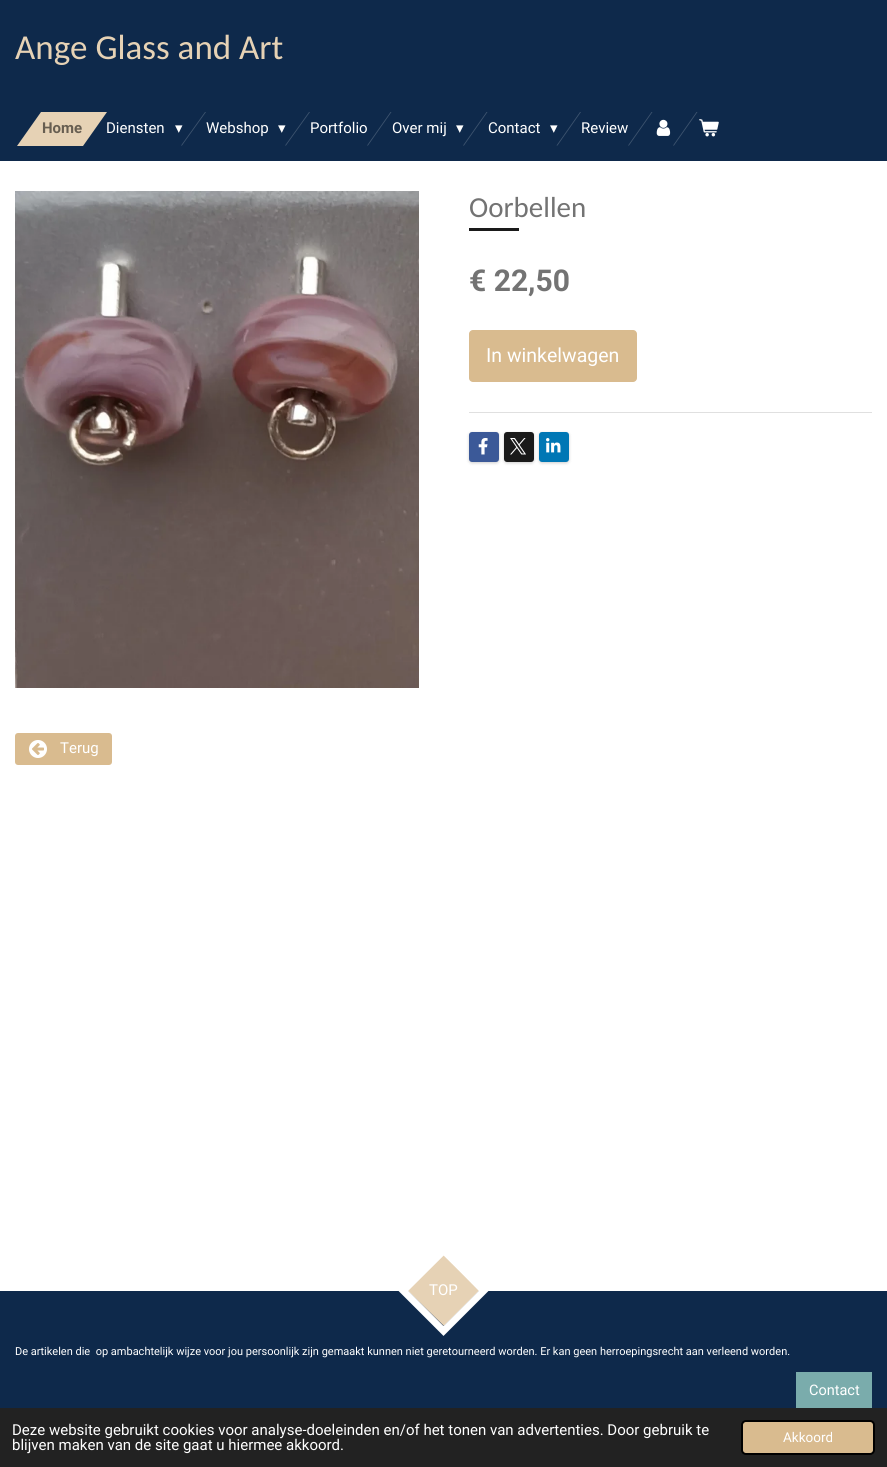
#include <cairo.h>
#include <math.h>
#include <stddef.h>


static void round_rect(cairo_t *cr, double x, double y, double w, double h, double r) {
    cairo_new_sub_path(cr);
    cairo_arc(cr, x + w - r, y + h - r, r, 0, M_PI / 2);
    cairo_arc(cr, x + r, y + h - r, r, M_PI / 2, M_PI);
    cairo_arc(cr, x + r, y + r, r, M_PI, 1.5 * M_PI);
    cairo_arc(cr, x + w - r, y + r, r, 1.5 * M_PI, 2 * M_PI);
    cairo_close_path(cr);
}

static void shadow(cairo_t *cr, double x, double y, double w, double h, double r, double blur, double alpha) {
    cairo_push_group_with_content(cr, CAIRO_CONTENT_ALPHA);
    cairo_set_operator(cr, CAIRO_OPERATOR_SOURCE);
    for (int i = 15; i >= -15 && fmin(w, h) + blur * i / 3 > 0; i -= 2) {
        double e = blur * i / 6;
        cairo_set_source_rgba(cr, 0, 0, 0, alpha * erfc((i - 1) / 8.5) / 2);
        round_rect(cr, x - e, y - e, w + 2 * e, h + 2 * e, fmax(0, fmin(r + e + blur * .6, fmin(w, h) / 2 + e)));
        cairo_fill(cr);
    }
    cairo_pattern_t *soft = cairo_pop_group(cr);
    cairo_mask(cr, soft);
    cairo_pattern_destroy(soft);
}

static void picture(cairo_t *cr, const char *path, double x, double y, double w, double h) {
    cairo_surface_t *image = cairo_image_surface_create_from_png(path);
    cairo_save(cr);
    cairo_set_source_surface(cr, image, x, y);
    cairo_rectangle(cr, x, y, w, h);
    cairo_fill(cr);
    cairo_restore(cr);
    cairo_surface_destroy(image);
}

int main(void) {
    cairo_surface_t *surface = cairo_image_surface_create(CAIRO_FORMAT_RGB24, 887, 1467);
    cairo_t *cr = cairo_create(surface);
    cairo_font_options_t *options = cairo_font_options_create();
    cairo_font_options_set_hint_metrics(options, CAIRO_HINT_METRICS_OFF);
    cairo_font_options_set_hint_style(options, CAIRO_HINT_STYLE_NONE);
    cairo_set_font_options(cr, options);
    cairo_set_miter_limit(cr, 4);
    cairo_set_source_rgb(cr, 1, 1, 1);
    cairo_paint(cr);
    cairo_set_source_rgb(cr, 0.055, 0.161, 0.294);
    cairo_rectangle(cr, 0, 0, 887, 161);
    cairo_fill(cr);
    cairo_select_font_face(cr, "Carlito", CAIRO_FONT_SLANT_NORMAL, CAIRO_FONT_WEIGHT_NORMAL);
    cairo_set_font_size(cr, 35);
    cairo_set_source_rgb(cr, 0.902, 0.824, 0.71);
    cairo_move_to(cr, 15, 59);
    cairo_show_text(cr, "Ange Glass and Art");
    cairo_new_path(cr);
    cairo_move_to(cr, 41, 112);
    cairo_line_to(cr, 107, 112);
    cairo_line_to(cr, 83, 146);
    cairo_line_to(cr, 17, 146);
    cairo_close_path(cr);
    cairo_fill(cr);
    cairo_select_font_face(cr, "Roboto", CAIRO_FONT_SLANT_NORMAL, CAIRO_FONT_WEIGHT_BOLD);
    cairo_set_font_size(cr, 15);
    cairo_set_source_rgb(cr, 0.404, 0.369, 0.318);
    cairo_move_to(cr, 42, 133);
    cairo_show_text(cr, "Home");
    cairo_select_font_face(cr, "Roboto", CAIRO_FONT_SLANT_NORMAL, CAIRO_FONT_WEIGHT_NORMAL);
    cairo_set_source_rgb(cr, 1, 1, 1);
    cairo_move_to(cr, 106, 133);
    cairo_show_text(cr, "Diensten");
    cairo_set_source_rgb(cr, 0.243, 0.329, 0.435);
    cairo_new_path(cr);
    cairo_move_to(cr, 205, 112);
    cairo_line_to(cr, 206, 112);
    cairo_line_to(cr, 182, 145.5);
    cairo_line_to(cr, 181, 145.5);
    cairo_close_path(cr);
    cairo_fill(cr);
    cairo_select_font_face(cr, "DejaVu Sans", CAIRO_FONT_SLANT_NORMAL, CAIRO_FONT_WEIGHT_NORMAL);
    cairo_set_source_rgb(cr, 1, 1, 1);
    cairo_move_to(cr, 175, 133);
    cairo_show_text(cr, "▾");
    cairo_select_font_face(cr, "Roboto", CAIRO_FONT_SLANT_NORMAL, CAIRO_FONT_WEIGHT_NORMAL);
    cairo_move_to(cr, 206, 133);
    cairo_show_text(cr, "Webshop");
    cairo_set_source_rgb(cr, 0.243, 0.329, 0.435);
    cairo_new_path(cr);
    cairo_move_to(cr, 309, 112);
    cairo_line_to(cr, 310, 112);
    cairo_line_to(cr, 286, 145.5);
    cairo_line_to(cr, 285, 145.5);
    cairo_close_path(cr);
    cairo_fill(cr);
    cairo_select_font_face(cr, "DejaVu Sans", CAIRO_FONT_SLANT_NORMAL, CAIRO_FONT_WEIGHT_NORMAL);
    cairo_set_source_rgb(cr, 1, 1, 1);
    cairo_move_to(cr, 278, 133);
    cairo_show_text(cr, "▾");
    cairo_select_font_face(cr, "Roboto", CAIRO_FONT_SLANT_NORMAL, CAIRO_FONT_WEIGHT_NORMAL);
    cairo_move_to(cr, 310, 133);
    cairo_show_text(cr, "Portfolio");
    cairo_set_source_rgb(cr, 0.243, 0.329, 0.435);
    cairo_new_path(cr);
    cairo_move_to(cr, 390.5, 112);
    cairo_line_to(cr, 391.5, 112);
    cairo_line_to(cr, 368, 145.5);
    cairo_line_to(cr, 367, 145.5);
    cairo_close_path(cr);
    cairo_fill(cr);
    cairo_set_source_rgb(cr, 1, 1, 1);
    cairo_move_to(cr, 392, 133);
    cairo_show_text(cr, "Over mij");
    cairo_set_source_rgb(cr, 0.243, 0.329, 0.435);
    cairo_new_path(cr);
    cairo_move_to(cr, 486.5, 112);
    cairo_line_to(cr, 487.5, 112);
    cairo_line_to(cr, 464, 145.5);
    cairo_line_to(cr, 463, 145.5);
    cairo_close_path(cr);
    cairo_fill(cr);
    cairo_select_font_face(cr, "DejaVu Sans", CAIRO_FONT_SLANT_NORMAL, CAIRO_FONT_WEIGHT_NORMAL);
    cairo_set_source_rgb(cr, 1, 1, 1);
    cairo_move_to(cr, 456, 133);
    cairo_show_text(cr, "▾");
    cairo_select_font_face(cr, "Roboto", CAIRO_FONT_SLANT_NORMAL, CAIRO_FONT_WEIGHT_NORMAL);
    cairo_move_to(cr, 488, 133);
    cairo_show_text(cr, "Contact");
    cairo_set_source_rgb(cr, 0.243, 0.329, 0.435);
    cairo_new_path(cr);
    cairo_move_to(cr, 580, 112);
    cairo_line_to(cr, 581, 112);
    cairo_line_to(cr, 557.5, 145.5);
    cairo_line_to(cr, 556.5, 145.5);
    cairo_close_path(cr);
    cairo_fill(cr);
    cairo_select_font_face(cr, "DejaVu Sans", CAIRO_FONT_SLANT_NORMAL, CAIRO_FONT_WEIGHT_NORMAL);
    cairo_set_source_rgb(cr, 1, 1, 1);
    cairo_move_to(cr, 550, 133);
    cairo_show_text(cr, "▾");
    cairo_set_source_rgb(cr, 0.243, 0.329, 0.435);
    cairo_new_path(cr);
    cairo_move_to(cr, 651.5, 112);
    cairo_line_to(cr, 652.5, 112);
    cairo_line_to(cr, 629, 145.5);
    cairo_line_to(cr, 628, 145.5);
    cairo_close_path(cr);
    cairo_fill(cr);
    cairo_select_font_face(cr, "Roboto", CAIRO_FONT_SLANT_NORMAL, CAIRO_FONT_WEIGHT_NORMAL);
    cairo_set_source_rgb(cr, 1, 1, 1);
    cairo_move_to(cr, 581, 133);
    cairo_show_text(cr, "Review");
    picture(cr, "img1.png", 656, 119, 15, 17);
    cairo_set_source_rgb(cr, 0.243, 0.329, 0.435);
    cairo_new_path(cr);
    cairo_move_to(cr, 696.5, 112);
    cairo_line_to(cr, 697.5, 112);
    cairo_line_to(cr, 674, 145.5);
    cairo_line_to(cr, 673, 145.5);
    cairo_close_path(cr);
    cairo_fill(cr);
    picture(cr, "img2.png", 699, 119, 20, 18);
    picture(cr, "img3.png", 15, 191, 404, 497);
    cairo_select_font_face(cr, "Carlito", CAIRO_FONT_SLANT_NORMAL, CAIRO_FONT_WEIGHT_NORMAL);
    cairo_set_font_size(cr, 29);
    cairo_set_source_rgb(cr, 0.451, 0.451, 0.451);
    cairo_move_to(cr, 469, 217);
    cairo_show_text(cr, "Oorbellen");
    cairo_set_source_rgb(cr, 0.102, 0.102, 0.102);
    cairo_rectangle(cr, 469, 228, 50, 3);
    cairo_fill(cr);
    cairo_select_font_face(cr, "Roboto", CAIRO_FONT_SLANT_NORMAL, CAIRO_FONT_WEIGHT_BOLD);
    cairo_set_font_size(cr, 30);
    cairo_set_source_rgb(cr, 0.451, 0.451, 0.451);
    cairo_move_to(cr, 469, 291);
    cairo_show_text(cr, "€ 22,50");
    cairo_set_source_rgb(cr, 0.851, 0.733, 0.561);
    round_rect(cr, 469, 330, 168, 52, 4);
    cairo_fill(cr);
    cairo_select_font_face(cr, "Roboto", CAIRO_FONT_SLANT_NORMAL, CAIRO_FONT_WEIGHT_NORMAL);
    cairo_set_font_size(cr, 19.5);
    cairo_set_source_rgb(cr, 1, 1, 1);
    cairo_move_to(cr, 486, 362);
    cairo_show_text(cr, "In winkelwagen");
    cairo_set_source_rgb(cr, 0.878, 0.878, 0.878);
    cairo_rectangle(cr, 469, 412, 403, 1);
    cairo_fill(cr);
    cairo_set_source_rgb(cr, 0, 0, 0);
    shadow(cr, 469, 433, 30, 30, 3, 1.5, 0.2);
    cairo_set_source_rgb(cr, 0.231, 0.349, 0.596);
    round_rect(cr, 469, 432, 30, 30, 3);
    cairo_fill(cr);
    picture(cr, "img4.png", 478, 438, 10, 17);
    cairo_set_source_rgb(cr, 0, 0, 0);
    shadow(cr, 504, 433, 30, 30, 3, 1.5, 0.2);
    cairo_set_source_rgb(cr, 0.102, 0.102, 0.102);
    round_rect(cr, 504, 432, 30, 30, 3);
    cairo_fill(cr);
    picture(cr, "img5.png", 510, 438, 16, 17);
    cairo_set_source_rgb(cr, 0, 0, 0);
    shadow(cr, 539, 433, 30, 30, 3, 1.5, 0.2);
    cairo_set_source_rgb(cr, 0, 0.467, 0.71);
    round_rect(cr, 539, 432, 30, 30, 3);
    cairo_fill(cr);
    picture(cr, "img6.png", 546, 438, 15, 15);
    cairo_set_source_rgb(cr, 0.851, 0.733, 0.561);
    round_rect(cr, 15, 733, 97, 32, 3);
    cairo_fill(cr);
    picture(cr, "img7.png", 29, 740, 18, 18);
    cairo_set_font_size(cr, 15);
    cairo_set_source_rgb(cr, 1, 1, 1);
    cairo_move_to(cr, 60, 753);
    cairo_show_text(cr, "Terug");
    cairo_set_source_rgb(cr, 0.055, 0.161, 0.294);
    cairo_rectangle(cr, 0, 1291, 887, 117);
    cairo_fill(cr);
    cairo_set_source_rgb(cr, 0.902, 0.824, 0.71);
    cairo_new_path(cr);
    cairo_move_to(cr, 444, 1255);
    cairo_line_to(cr, 479, 1291);
    cairo_line_to(cr, 444, 1326);
    cairo_line_to(cr, 408, 1291);
    cairo_close_path(cr);
    cairo_fill(cr);
    cairo_new_path(cr);
    cairo_move_to(cr, 443.5, 1250.5);
    cairo_line_to(cr, 484, 1290.5);
    cairo_line_to(cr, 443.5, 1331);
    cairo_line_to(cr, 403, 1290.5);
    cairo_close_path(cr);
    cairo_set_source_rgb(cr, 1, 1, 1);
    cairo_set_line_width(cr, 7);
    cairo_stroke(cr);
    cairo_move_to(cr, 429, 1295);
    cairo_show_text(cr, "TOP");
    cairo_set_font_size(cr, 11);
    cairo_move_to(cr, 15, 1355);
    cairo_show_text(cr, "De artikelen die  op ambachtelijk wijze voor jou persoonlijk zijn gemaakt kunnen niet geretourneerd worden. Er kan geen herroepingsrecht aan verleend worden.");
    cairo_set_source_rgb(cr, 0.478, 0.675, 0.675);
    cairo_rectangle(cr, 796, 1372, 76, 36);
    cairo_fill(cr);
    cairo_set_font_size(cr, 14.5);
    cairo_set_source_rgb(cr, 1, 1, 1);
    cairo_move_to(cr, 809, 1395);
    cairo_show_text(cr, "Contact");
    cairo_set_source_rgb(cr, 0.133, 0.133, 0.133);
    cairo_rectangle(cr, 0, 1408, 887, 59);
    cairo_fill(cr);
    cairo_set_font_size(cr, 15);
    cairo_set_source_rgb(cr, 1, 1, 1);
    cairo_move_to(cr, 12, 1435);
    cairo_show_text(cr, "Deze website gebruikt cookies voor analyse-doeleinden en/of het tonen van advertenties. Door gebruik te");
    cairo_move_to(cr, 12, 1450);
    cairo_show_text(cr, "blijven maken van de site gaat u hiermee akkoord.");
    cairo_set_source_rgb(cr, 0.851, 0.733, 0.561);
    round_rect(cr, 742, 1421, 132, 33, 4);
    cairo_fill_preserve(cr);
    cairo_set_source_rgb(cr, 0, 0, 0);
    cairo_set_line_width(cr, 2);
    cairo_stroke(cr);
    cairo_set_font_size(cr, 13.5);
    cairo_set_source_rgb(cr, 1, 1, 1);
    cairo_move_to(cr, 783, 1442);
    cairo_show_text(cr, "Akkoord");
    cairo_surface_write_to_png(surface, "page.png");
    cairo_font_options_destroy(options);
    cairo_destroy(cr);
    cairo_surface_destroy(surface);
    return 0;
}
